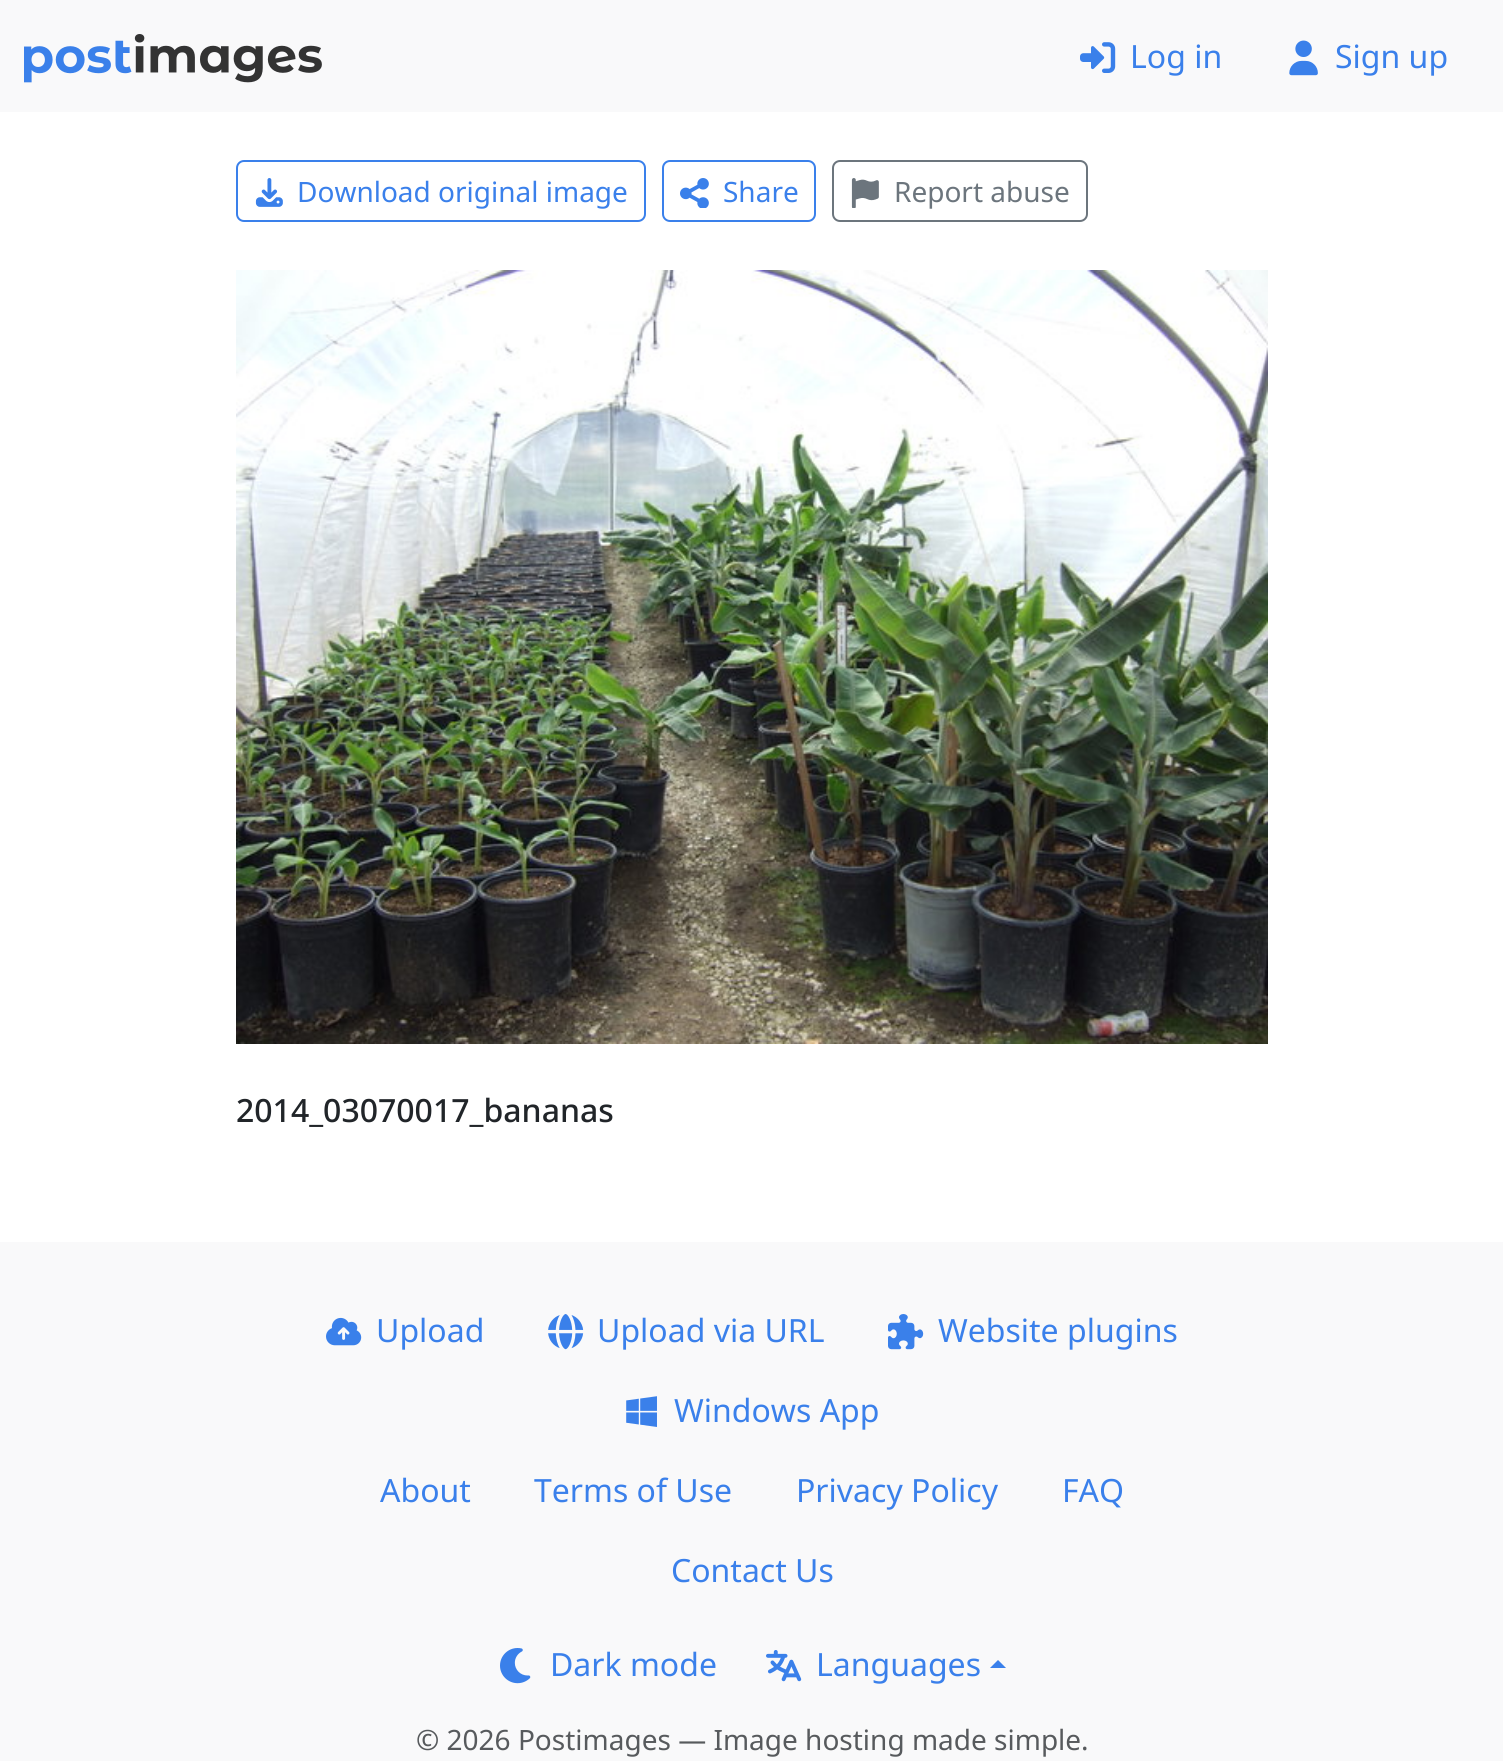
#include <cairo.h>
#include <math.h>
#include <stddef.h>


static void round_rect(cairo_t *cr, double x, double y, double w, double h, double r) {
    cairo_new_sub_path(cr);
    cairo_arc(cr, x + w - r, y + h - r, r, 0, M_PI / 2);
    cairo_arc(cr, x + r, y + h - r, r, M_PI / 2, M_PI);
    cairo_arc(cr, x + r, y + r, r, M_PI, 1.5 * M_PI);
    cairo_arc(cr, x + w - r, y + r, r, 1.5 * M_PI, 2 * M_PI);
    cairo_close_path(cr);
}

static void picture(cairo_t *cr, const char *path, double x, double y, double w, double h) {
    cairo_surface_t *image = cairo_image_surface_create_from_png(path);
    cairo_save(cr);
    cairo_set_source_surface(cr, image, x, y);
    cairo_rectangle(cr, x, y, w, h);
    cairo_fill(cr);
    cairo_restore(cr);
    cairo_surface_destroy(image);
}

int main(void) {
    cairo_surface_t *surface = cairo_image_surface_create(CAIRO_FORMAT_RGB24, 1503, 1761);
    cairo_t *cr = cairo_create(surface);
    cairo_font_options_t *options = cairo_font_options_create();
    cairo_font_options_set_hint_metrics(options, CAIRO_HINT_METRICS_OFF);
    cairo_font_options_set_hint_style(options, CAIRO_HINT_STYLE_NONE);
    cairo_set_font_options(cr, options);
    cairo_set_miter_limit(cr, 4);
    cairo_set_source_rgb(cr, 1, 1, 1);
    cairo_paint(cr);
    cairo_set_source_rgb(cr, 0.973, 0.976, 0.98);
    cairo_rectangle(cr, 0, 0, 1503, 112);
    cairo_fill(cr);
    picture(cr, "img1.png", 24, 34, 298, 49);
    picture(cr, "img2.png", 1080, 42, 36, 31);
    cairo_select_font_face(cr, "Noto Sans", CAIRO_FONT_SLANT_NORMAL, CAIRO_FONT_WEIGHT_NORMAL);
    cairo_set_font_size(cr, 32);
    cairo_set_source_rgb(cr, 0.227, 0.502, 0.918);
    cairo_move_to(cr, 1130, 68);
    cairo_show_text(cr, "Log in");
    picture(cr, "img3.png", 1289, 40, 29, 36);
    cairo_move_to(cr, 1335, 68);
    cairo_show_text(cr, "Sign up");
    round_rect(cr, 237, 161, 408, 60, 7);
    cairo_stroke(cr);
    picture(cr, "img4.png", 255, 178, 28, 29);
    cairo_set_font_size(cr, 28);
    cairo_move_to(cr, 297, 202);
    cairo_show_text(cr, "Download original image");
    round_rect(cr, 663, 161, 152, 60, 7);
    cairo_stroke(cr);
    picture(cr, "img5.png", 680, 178, 29, 30);
    cairo_move_to(cr, 723, 202);
    cairo_show_text(cr, "Share");
    round_rect(cr, 833, 161, 254, 60, 7);
    cairo_set_source_rgb(cr, 0.424, 0.459, 0.49);
    cairo_stroke(cr);
    picture(cr, "img6.png", 851, 178, 28, 30);
    cairo_move_to(cr, 894, 202);
    cairo_show_text(cr, "Report abuse");
    picture(cr, "img7.png", 236, 270, 1032, 774);
    cairo_select_font_face(cr, "Noto Sans Medium", CAIRO_FONT_SLANT_NORMAL, CAIRO_FONT_WEIGHT_NORMAL);
    cairo_set_font_size(cr, 32);
    cairo_set_source_rgb(cr, 0.129, 0.145, 0.161);
    cairo_move_to(cr, 236, 1122);
    cairo_show_text(cr, "2014_03070017_bananas");
    cairo_set_source_rgb(cr, 0.973, 0.976, 0.98);
    cairo_rectangle(cr, 0, 1242, 1503, 519);
    cairo_fill(cr);
    picture(cr, "img8.png", 326, 1317, 36, 29);
    cairo_select_font_face(cr, "Noto Sans", CAIRO_FONT_SLANT_NORMAL, CAIRO_FONT_WEIGHT_NORMAL);
    cairo_set_source_rgb(cr, 0.227, 0.502, 0.918);
    cairo_move_to(cr, 376, 1342);
    cairo_show_text(cr, "Upload");
    picture(cr, "img9.png", 548, 1314, 36, 36);
    cairo_move_to(cr, 597, 1342);
    cairo_show_text(cr, "Upload via URL");
    picture(cr, "img10.png", 888, 1314, 36, 36);
    cairo_move_to(cr, 938, 1342);
    cairo_show_text(cr, "Website plugins");
    picture(cr, "img11.png", 626, 1396, 31, 31);
    cairo_move_to(cr, 674, 1422);
    cairo_show_text(cr, "Windows App");
    cairo_move_to(cr, 380, 1502);
    cairo_show_text(cr, "About");
    cairo_move_to(cr, 534, 1502);
    cairo_show_text(cr, "Terms of Use");
    cairo_move_to(cr, 796, 1502);
    cairo_show_text(cr, "Privacy Policy");
    cairo_move_to(cr, 1062, 1502);
    cairo_show_text(cr, "FAQ");
    cairo_move_to(cr, 671, 1582);
    cairo_show_text(cr, "Contact Us");
    picture(cr, "img12.png", 500, 1648, 31, 36);
    cairo_move_to(cr, 550, 1676);
    cairo_show_text(cr, "Dark mode");
    picture(cr, "img13.png", 766, 1650, 36, 32);
    cairo_move_to(cr, 816, 1676);
    cairo_show_text(cr, "Languages");
    cairo_new_path(cr);
    cairo_move_to(cr, 1006, 1668);
    cairo_line_to(cr, 990, 1668);
    cairo_line_to(cr, 998, 1660);
    cairo_close_path(cr);
    cairo_fill(cr);
    cairo_set_font_size(cr, 28);
    cairo_set_source_rgb(cr, 0.341, 0.353, 0.365);
    cairo_move_to(cr, 416, 1750);
    cairo_show_text(cr, "© 2026 Postimages — Image hosting made simple.");
    cairo_surface_write_to_png(surface, "page.png");
    cairo_font_options_destroy(options);
    cairo_destroy(cr);
    cairo_surface_destroy(surface);
    return 0;
}
